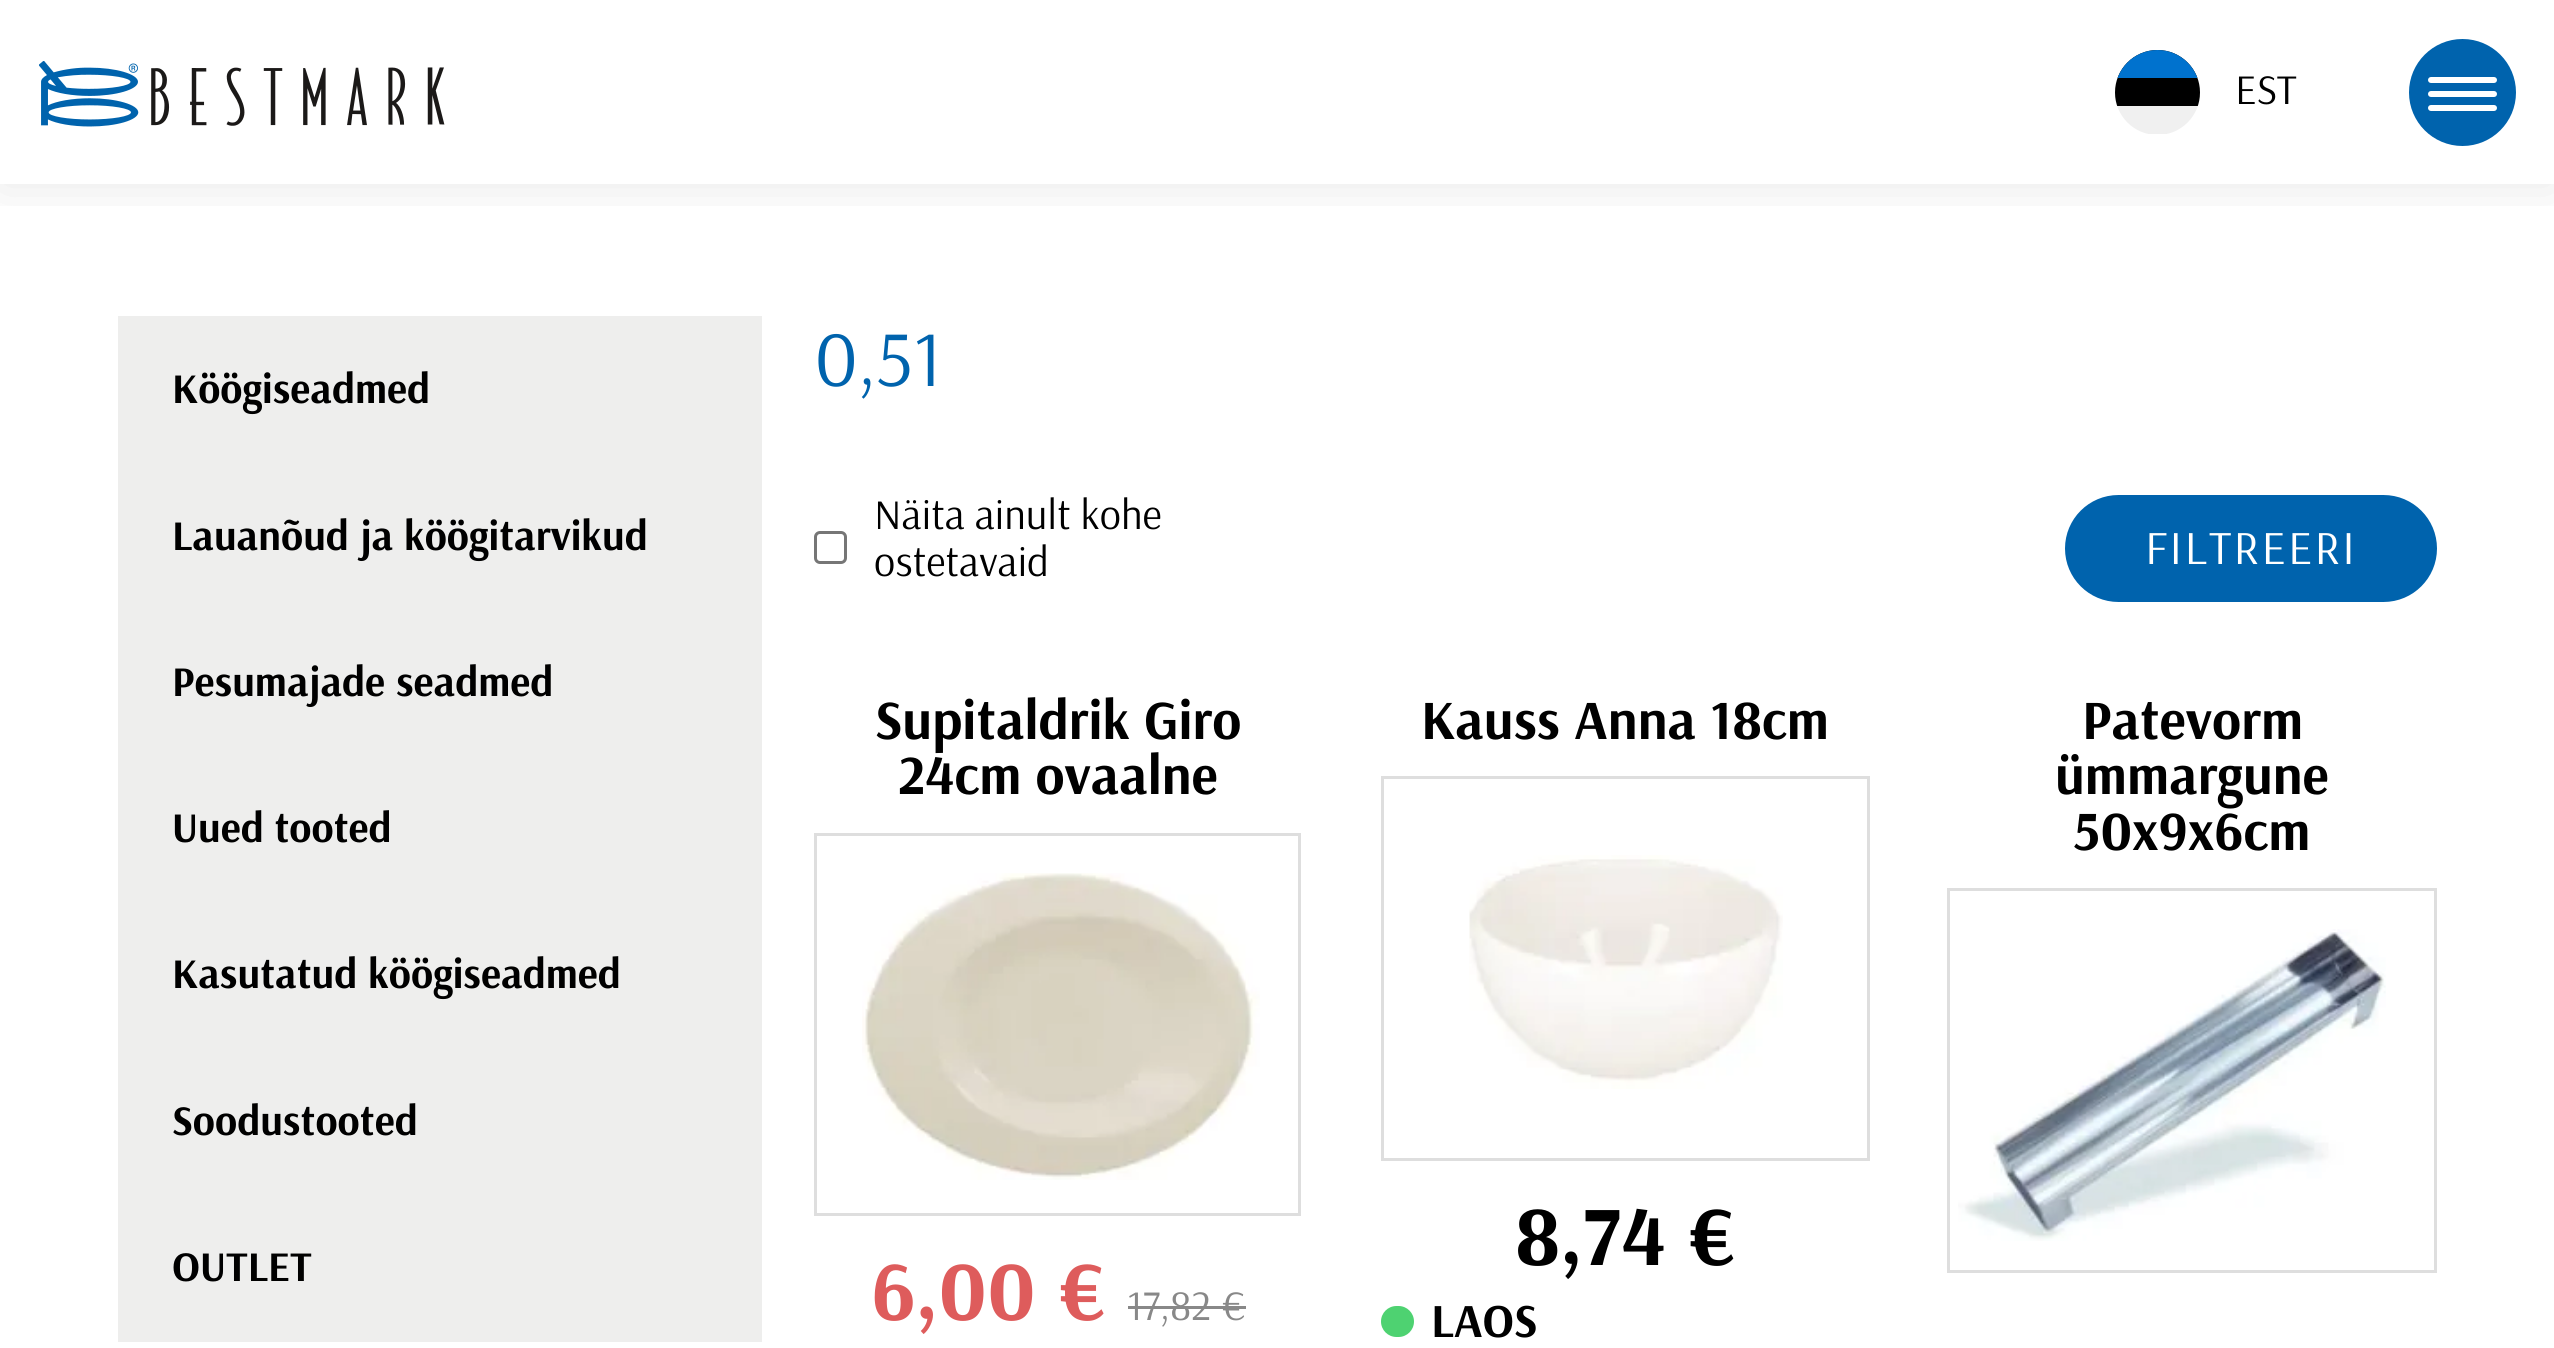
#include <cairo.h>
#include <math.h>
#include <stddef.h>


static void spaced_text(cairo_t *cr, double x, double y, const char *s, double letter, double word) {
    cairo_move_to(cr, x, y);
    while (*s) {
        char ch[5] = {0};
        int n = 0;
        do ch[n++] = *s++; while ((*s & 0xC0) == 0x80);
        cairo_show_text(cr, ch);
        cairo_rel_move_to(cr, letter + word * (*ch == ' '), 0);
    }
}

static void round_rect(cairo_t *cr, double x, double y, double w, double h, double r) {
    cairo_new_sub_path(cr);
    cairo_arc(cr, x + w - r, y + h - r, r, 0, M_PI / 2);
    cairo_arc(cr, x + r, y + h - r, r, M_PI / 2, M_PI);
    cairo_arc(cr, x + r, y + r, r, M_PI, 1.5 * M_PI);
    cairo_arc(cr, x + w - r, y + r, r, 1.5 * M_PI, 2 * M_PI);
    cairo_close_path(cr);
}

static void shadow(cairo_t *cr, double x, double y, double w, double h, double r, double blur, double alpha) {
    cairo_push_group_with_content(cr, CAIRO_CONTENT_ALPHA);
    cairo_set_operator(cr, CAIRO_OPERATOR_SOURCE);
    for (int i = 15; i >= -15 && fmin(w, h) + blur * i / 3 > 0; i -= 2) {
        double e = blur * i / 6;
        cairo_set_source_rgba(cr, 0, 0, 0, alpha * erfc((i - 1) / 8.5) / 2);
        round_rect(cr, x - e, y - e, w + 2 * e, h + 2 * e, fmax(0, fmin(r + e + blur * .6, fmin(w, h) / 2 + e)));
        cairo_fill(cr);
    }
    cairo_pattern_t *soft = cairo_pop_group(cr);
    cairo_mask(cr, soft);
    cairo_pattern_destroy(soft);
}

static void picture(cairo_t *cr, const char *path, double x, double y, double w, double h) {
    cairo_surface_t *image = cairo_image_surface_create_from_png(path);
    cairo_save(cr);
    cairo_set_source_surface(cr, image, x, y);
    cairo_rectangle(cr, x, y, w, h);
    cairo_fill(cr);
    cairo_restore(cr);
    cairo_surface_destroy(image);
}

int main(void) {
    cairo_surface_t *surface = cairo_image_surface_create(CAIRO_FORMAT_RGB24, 2554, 1348);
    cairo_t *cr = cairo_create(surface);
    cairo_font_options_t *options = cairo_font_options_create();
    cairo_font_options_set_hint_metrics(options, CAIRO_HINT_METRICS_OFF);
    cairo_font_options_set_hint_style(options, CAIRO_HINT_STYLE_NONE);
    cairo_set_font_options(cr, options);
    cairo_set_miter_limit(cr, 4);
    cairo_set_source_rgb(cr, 1, 1, 1);
    cairo_paint(cr);
    cairo_save(cr);
    cairo_rectangle(cr, 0, 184, 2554, 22);
    cairo_clip(cr);
    cairo_set_source_rgb(cr, 0, 0, 0);
    shadow(cr, 0, 0, 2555, 184, 0, 26.5, 0.1);
    cairo_restore(cr);
    picture(cr, "img1.png", 39, 61, 406, 66);
    cairo_save(cr);
    round_rect(cr, 2115, 50, 85, 85, 42.5);
    cairo_clip(cr);
    cairo_set_source_rgb(cr, 0.941, 0.941, 0.941);
    cairo_new_path(cr);
    cairo_move_to(cr, 2157.5, 50);
    cairo_curve_to(cr, 2181, 50, 2200, 69, 2200, 92.5);
    cairo_line_to(cr, 2200, 134);
    cairo_line_to(cr, 2115, 134);
    cairo_line_to(cr, 2115, 92.5);
    cairo_curve_to(cr, 2115, 69, 2134, 50, 2157.5, 50);
    cairo_close_path(cr);
    cairo_fill(cr);
    cairo_set_source_rgb(cr, 0, 0, 0);
    cairo_new_path(cr);
    cairo_move_to(cr, 2157.5, 50);
    cairo_curve_to(cr, 2181, 50, 2200, 69, 2200, 92.5);
    cairo_line_to(cr, 2200, 106);
    cairo_line_to(cr, 2115, 106);
    cairo_line_to(cr, 2115, 92.5);
    cairo_curve_to(cr, 2115, 69, 2134, 50, 2157.5, 50);
    cairo_close_path(cr);
    cairo_fill(cr);
    cairo_set_source_rgb(cr, 0, 0.447, 0.808);
    cairo_rectangle(cr, 2117, 50, 81, 28);
    cairo_fill(cr);
    cairo_restore(cr);
    cairo_select_font_face(cr, "Arsenal", CAIRO_FONT_SLANT_NORMAL, CAIRO_FONT_WEIGHT_NORMAL);
    cairo_set_font_size(cr, 42.25);
    cairo_set_source_rgb(cr, 0, 0, 0);
    cairo_move_to(cr, 2235, 104);
    cairo_show_text(cr, "EST");
    cairo_set_source_rgb(cr, 0, 0.388, 0.678);
    cairo_new_path(cr);
    cairo_arc(cr, 2462.5, 92.5, 53.5, 0, 2 * M_PI);
    cairo_fill(cr);
    cairo_set_source_rgb(cr, 1, 1, 1);
    round_rect(cr, 2428, 77, 69, 6, 3);
    cairo_fill(cr);
    round_rect(cr, 2428, 91, 69, 6, 3);
    cairo_fill(cr);
    round_rect(cr, 2428, 105, 69, 6, 3);
    cairo_fill(cr);
    cairo_set_source_rgb(cr, 0.933, 0.933, 0.929);
    cairo_rectangle(cr, 118, 316, 644, 1026);
    cairo_fill(cr);
    cairo_select_font_face(cr, "Arsenal", CAIRO_FONT_SLANT_NORMAL, CAIRO_FONT_WEIGHT_BOLD);
    cairo_set_source_rgb(cr, 0, 0, 0);
    cairo_move_to(cr, 172, 403);
    cairo_show_text(cr, "Köögiseadmed");
    cairo_move_to(cr, 172, 550);
    cairo_show_text(cr, "Lauanõud ja köögitarvikud");
    cairo_move_to(cr, 172, 696);
    cairo_show_text(cr, "Pesumajade seadmed");
    cairo_move_to(cr, 172, 842);
    cairo_show_text(cr, "Uued tooted");
    cairo_move_to(cr, 172, 988);
    cairo_show_text(cr, "Kasutatud köögiseadmed");
    cairo_move_to(cr, 172, 1135);
    cairo_show_text(cr, "Soodustooted");
    cairo_move_to(cr, 172, 1281);
    cairo_show_text(cr, "OUTLET");
    cairo_select_font_face(cr, "Arsenal", CAIRO_FONT_SLANT_NORMAL, CAIRO_FONT_WEIGHT_NORMAL);
    cairo_set_font_size(cr, 79);
    cairo_set_source_rgb(cr, 0, 0.388, 0.678);
    cairo_move_to(cr, 814, 386);
    cairo_show_text(cr, "0,51");
    round_rect(cr, 815.5, 532.5, 30, 30, 4.5);
    cairo_set_source_rgb(cr, 0.463, 0.463, 0.463);
    cairo_set_line_width(cr, 3);
    cairo_stroke(cr);
    cairo_set_font_size(cr, 42.25);
    cairo_set_source_rgb(cr, 0, 0, 0);
    cairo_move_to(cr, 874, 529);
    cairo_show_text(cr, "Näita ainult kohe");
    cairo_move_to(cr, 874, 576);
    cairo_show_text(cr, "ostetavaid");
    cairo_set_source_rgb(cr, 0, 0.388, 0.678);
    round_rect(cr, 2066.5, 496.5, 369, 104, 52);
    cairo_fill_preserve(cr);
    cairo_stroke(cr);
    cairo_set_font_size(cr, 47.5);
    cairo_set_source_rgb(cr, 1, 1, 1);
    spaced_text(cr, 2145, 564, "FILTREERI", 2.4, 0);
    cairo_select_font_face(cr, "Arsenal", CAIRO_FONT_SLANT_NORMAL, CAIRO_FONT_WEIGHT_BOLD);
    cairo_set_font_size(cr, 55.5);
    cairo_set_source_rgb(cr, 0, 0, 0);
    cairo_move_to(cr, 875, 739);
    cairo_show_text(cr, "Supitaldrik Giro");
    cairo_move_to(cr, 898, 794);
    cairo_show_text(cr, "24cm ovaalne");
    cairo_rectangle(cr, 815.5, 834.5, 484, 380);
    cairo_set_source_rgb(cr, 0.871, 0.871, 0.871);
    cairo_stroke(cr);
    picture(cr, "img2.png", 862, 873, 398, 307);
    cairo_set_font_size(cr, 84.5);
    cairo_set_source_rgb(cr, 0.871, 0.361, 0.361);
    cairo_move_to(cr, 871, 1320);
    cairo_show_text(cr, "6,00 €");
    cairo_select_font_face(cr, "Arsenal", CAIRO_FONT_SLANT_NORMAL, CAIRO_FONT_WEIGHT_NORMAL);
    cairo_set_font_size(cr, 42.25);
    cairo_set_source_rgb(cr, 0.533, 0.533, 0.533);
    cairo_move_to(cr, 1127, 1320);
    cairo_show_text(cr, "17,82 €");
    cairo_rectangle(cr, 1128, 1306, 118, 3);
    cairo_fill(cr);
    cairo_select_font_face(cr, "Arsenal", CAIRO_FONT_SLANT_NORMAL, CAIRO_FONT_WEIGHT_BOLD);
    cairo_set_font_size(cr, 55.5);
    cairo_set_source_rgb(cr, 0, 0, 0);
    cairo_move_to(cr, 1421, 739);
    cairo_show_text(cr, "Kauss Anna 18cm");
    cairo_rectangle(cr, 1382.5, 777.5, 486, 382);
    cairo_set_source_rgb(cr, 0.871, 0.871, 0.871);
    cairo_stroke(cr);
    picture(cr, "img3.png", 1469, 855, 314, 234);
    cairo_set_font_size(cr, 84.5);
    cairo_set_source_rgb(cr, 0, 0, 0);
    cairo_move_to(cr, 1515, 1265);
    cairo_show_text(cr, "8,74 €");
    cairo_set_source_rgb(cr, 0.306, 0.824, 0.443);
    round_rect(cr, 1381, 1306, 33, 31, 15.5);
    cairo_fill(cr);
    cairo_set_font_size(cr, 47.5);
    cairo_set_source_rgb(cr, 0, 0, 0);
    cairo_move_to(cr, 1431, 1337);
    cairo_show_text(cr, "LAOS");
    cairo_set_font_size(cr, 55.5);
    cairo_move_to(cr, 2082, 739);
    cairo_show_text(cr, "Patevorm");
    cairo_move_to(cr, 2055, 794);
    cairo_show_text(cr, "ümmargune");
    cairo_move_to(cr, 2073, 850);
    cairo_show_text(cr, "50x9x6cm");
    cairo_rectangle(cr, 1948.5, 889.5, 487, 382);
    cairo_set_source_rgb(cr, 0.871, 0.871, 0.871);
    cairo_stroke(cr);
    picture(cr, "img4.png", 1958, 929, 428, 312);
    cairo_surface_write_to_png(surface, "page.png");
    cairo_font_options_destroy(options);
    cairo_destroy(cr);
    cairo_surface_destroy(surface);
    return 0;
}
